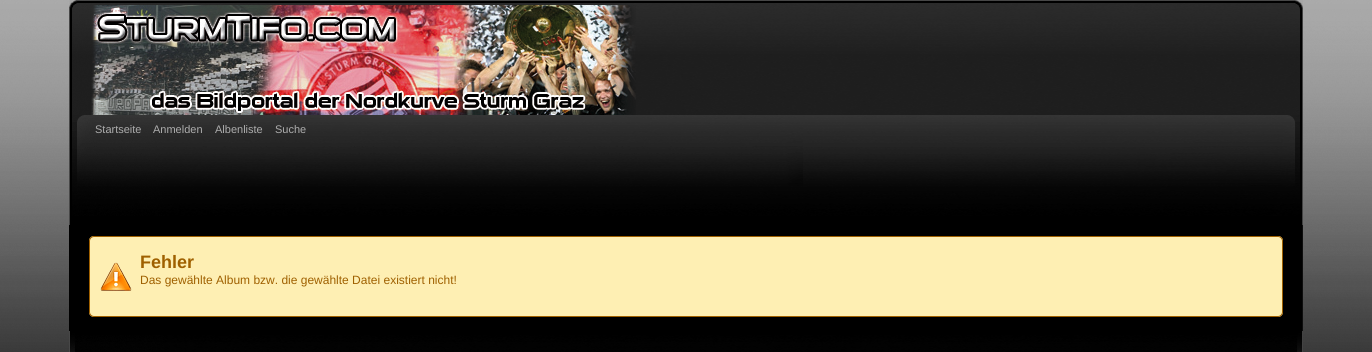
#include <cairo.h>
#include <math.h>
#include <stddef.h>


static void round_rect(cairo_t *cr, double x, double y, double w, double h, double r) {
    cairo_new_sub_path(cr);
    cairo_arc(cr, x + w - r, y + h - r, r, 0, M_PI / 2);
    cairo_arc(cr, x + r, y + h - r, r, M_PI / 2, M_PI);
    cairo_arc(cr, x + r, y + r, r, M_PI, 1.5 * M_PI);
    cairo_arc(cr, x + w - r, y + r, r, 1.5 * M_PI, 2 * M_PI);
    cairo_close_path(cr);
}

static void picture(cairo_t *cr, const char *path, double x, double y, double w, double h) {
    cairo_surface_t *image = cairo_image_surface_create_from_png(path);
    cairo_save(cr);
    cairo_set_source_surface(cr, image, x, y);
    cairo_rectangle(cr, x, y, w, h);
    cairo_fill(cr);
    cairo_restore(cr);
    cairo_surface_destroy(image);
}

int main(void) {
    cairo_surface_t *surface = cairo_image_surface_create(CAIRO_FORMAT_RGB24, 1372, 352);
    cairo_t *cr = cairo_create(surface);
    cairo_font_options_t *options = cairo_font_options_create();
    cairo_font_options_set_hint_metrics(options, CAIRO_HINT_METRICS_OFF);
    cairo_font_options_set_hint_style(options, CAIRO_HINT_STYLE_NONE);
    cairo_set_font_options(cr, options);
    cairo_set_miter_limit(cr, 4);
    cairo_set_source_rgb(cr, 1, 1, 1);
    cairo_paint(cr);
    picture(cr, "img1.png", 0, 0, 1372, 352);
    picture(cr, "img2.png", 69, 0, 1226, 115);
    picture(cr, "img3.png", 1295, 0, 8, 115);
    picture(cr, "img4.png", 91, 5, 545, 110);
    picture(cr, "img5.png", 69, 115, 734, 110);
    picture(cr, "img6.png", 803, 115, 500, 110);
    cairo_select_font_face(cr, "Liberation Sans", CAIRO_FONT_SLANT_NORMAL, CAIRO_FONT_WEIGHT_NORMAL);
    cairo_set_font_size(cr, 11);
    cairo_set_source_rgb(cr, 0.678, 0.678, 0.678);
    cairo_move_to(cr, 95, 133);
    cairo_show_text(cr, "Startseite");
    cairo_move_to(cr, 153, 133);
    cairo_show_text(cr, "Anmelden");
    cairo_move_to(cr, 215, 133);
    cairo_show_text(cr, "Albenliste");
    cairo_move_to(cr, 275, 133);
    cairo_show_text(cr, "Suche");
    cairo_set_source_rgb(cr, 0, 0, 0);
    cairo_rectangle(cr, 69, 225, 1233, 106);
    cairo_fill(cr);
    cairo_set_source_rgb(cr, 0.055, 0.055, 0.055);
    cairo_rectangle(cr, 1302, 225, 1, 106);
    cairo_fill(cr);
    cairo_set_source_rgb(cr, 0.996, 0.937, 0.702);
    round_rect(cr, 89, 236, 1194, 81, 5);
    cairo_fill(cr);
    picture(cr, "img7.png", 100, 262, 32, 29);
    round_rect(cr, 89.5, 236.5, 1193, 80, 4.5);
    cairo_set_source_rgb(cr, 0.624, 0.376, 0);
    cairo_set_line_width(cr, 1);
    cairo_stroke(cr);
    cairo_select_font_face(cr, "Liberation Sans", CAIRO_FONT_SLANT_NORMAL, CAIRO_FONT_WEIGHT_BOLD);
    cairo_set_font_size(cr, 18);
    cairo_move_to(cr, 140, 268);
    cairo_show_text(cr, "Fehler");
    cairo_select_font_face(cr, "Liberation Sans", CAIRO_FONT_SLANT_NORMAL, CAIRO_FONT_WEIGHT_NORMAL);
    cairo_set_font_size(cr, 12);
    cairo_move_to(cr, 140, 284);
    cairo_show_text(cr, "Das gewählte Album bzw. die gewählte Datei existiert nicht!");
    picture(cr, "img8.png", 69, 331, 1228, 21);
    picture(cr, "img9.png", 1297, 331, 6, 21);
    cairo_surface_write_to_png(surface, "page.png");
    cairo_font_options_destroy(options);
    cairo_destroy(cr);
    cairo_surface_destroy(surface);
    return 0;
}
